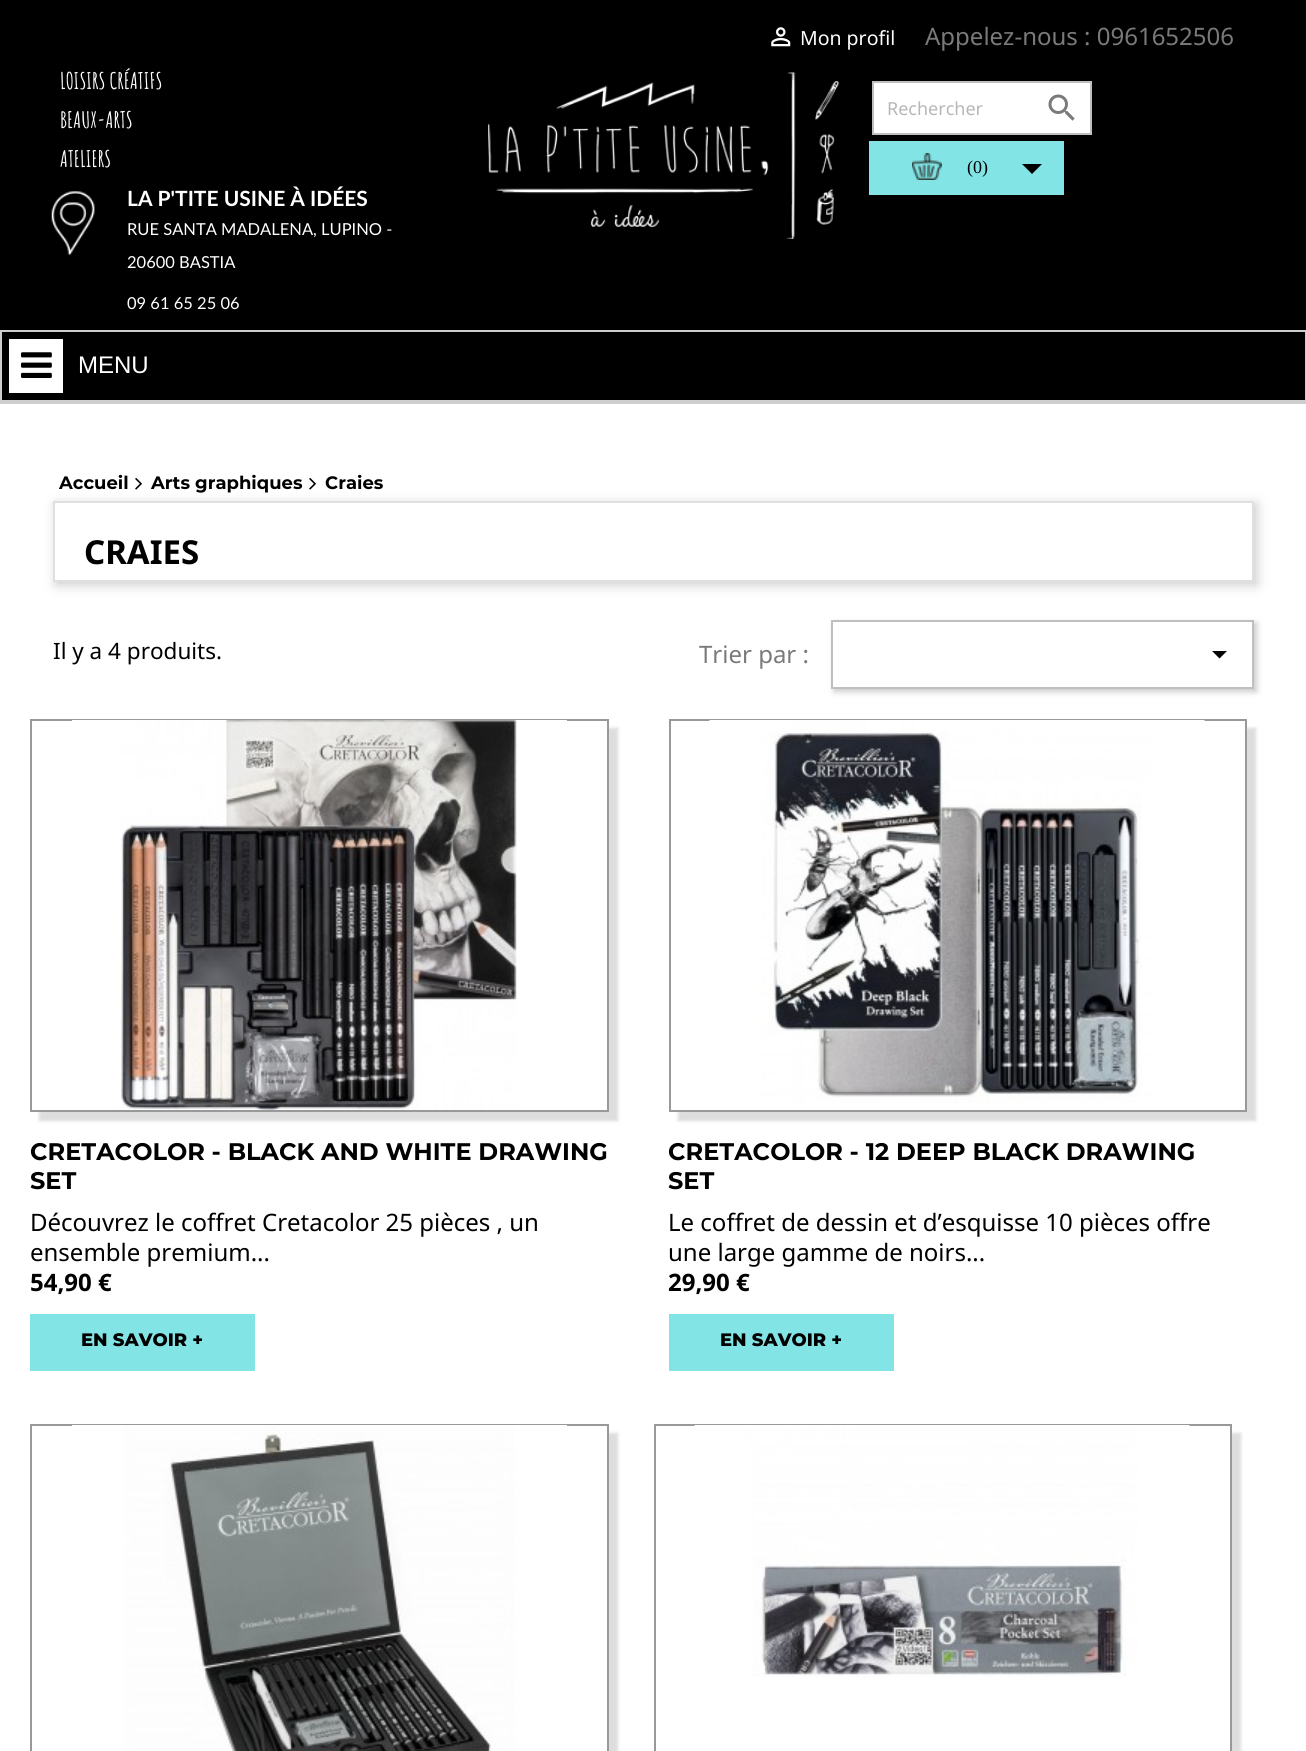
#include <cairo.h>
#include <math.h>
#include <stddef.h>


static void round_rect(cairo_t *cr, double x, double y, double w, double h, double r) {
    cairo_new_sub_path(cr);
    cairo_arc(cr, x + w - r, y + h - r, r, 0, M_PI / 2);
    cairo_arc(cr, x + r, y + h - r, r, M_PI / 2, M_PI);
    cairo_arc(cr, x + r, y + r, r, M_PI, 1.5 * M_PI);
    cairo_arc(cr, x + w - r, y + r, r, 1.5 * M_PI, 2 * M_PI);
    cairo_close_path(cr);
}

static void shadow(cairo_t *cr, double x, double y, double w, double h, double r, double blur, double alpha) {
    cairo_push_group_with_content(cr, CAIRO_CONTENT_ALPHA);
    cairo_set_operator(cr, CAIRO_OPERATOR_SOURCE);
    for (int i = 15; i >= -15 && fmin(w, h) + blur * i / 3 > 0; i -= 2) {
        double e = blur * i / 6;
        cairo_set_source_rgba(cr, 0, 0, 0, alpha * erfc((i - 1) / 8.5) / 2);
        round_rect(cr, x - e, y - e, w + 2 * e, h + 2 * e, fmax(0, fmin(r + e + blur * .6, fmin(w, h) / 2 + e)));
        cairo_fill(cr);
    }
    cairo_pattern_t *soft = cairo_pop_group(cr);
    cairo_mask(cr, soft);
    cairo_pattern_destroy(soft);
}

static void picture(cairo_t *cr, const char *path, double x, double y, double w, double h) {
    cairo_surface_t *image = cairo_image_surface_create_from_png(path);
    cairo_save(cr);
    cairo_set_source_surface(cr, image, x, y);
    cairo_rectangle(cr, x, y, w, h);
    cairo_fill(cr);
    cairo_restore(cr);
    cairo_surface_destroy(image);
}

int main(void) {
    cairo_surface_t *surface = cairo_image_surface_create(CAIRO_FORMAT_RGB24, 1306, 1751);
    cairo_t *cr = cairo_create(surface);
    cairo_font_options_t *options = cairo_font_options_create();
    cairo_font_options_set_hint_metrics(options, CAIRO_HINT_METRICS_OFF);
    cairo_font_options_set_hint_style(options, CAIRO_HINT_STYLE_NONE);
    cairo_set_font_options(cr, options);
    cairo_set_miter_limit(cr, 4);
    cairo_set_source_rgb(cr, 0, 0, 0);
    cairo_paint(cr);
    picture(cr, "img1.png", 771, 27, 20, 20);
    cairo_select_font_face(cr, "Noto Sans", CAIRO_FONT_SLANT_NORMAL, CAIRO_FONT_WEIGHT_NORMAL);
    cairo_set_font_size(cr, 19.5);
    cairo_set_source_rgb(cr, 1, 1, 1);
    cairo_move_to(cr, 800, 45);
    cairo_show_text(cr, "Mon profil");
    cairo_set_font_size(cr, 24);
    cairo_set_source_rgb(cr, 0.478, 0.478, 0.478);
    cairo_move_to(cr, 925, 45);
    cairo_show_text(cr, "Appelez-nous : 0961652506");
    cairo_select_font_face(cr, "Amatic SC", CAIRO_FONT_SLANT_NORMAL, CAIRO_FONT_WEIGHT_BOLD);
    cairo_set_font_size(cr, 22.5);
    cairo_set_source_rgb(cr, 1, 1, 1);
    cairo_move_to(cr, 60, 89);
    cairo_show_text(cr, "LOISIRS CRÉATIFS");
    cairo_move_to(cr, 60, 128);
    cairo_show_text(cr, "BEAUX-ARTS");
    cairo_move_to(cr, 60, 167);
    cairo_show_text(cr, "ATELIERS");
    picture(cr, "img2.png", 51, 191, 44, 64);
    cairo_select_font_face(cr, "Lato", CAIRO_FONT_SLANT_NORMAL, CAIRO_FONT_WEIGHT_BOLD);
    cairo_set_font_size(cr, 21);
    cairo_move_to(cr, 127, 206);
    cairo_show_text(cr, "LA P'TITE USINE À IDÉES");
    cairo_select_font_face(cr, "Lato", CAIRO_FONT_SLANT_NORMAL, CAIRO_FONT_WEIGHT_NORMAL);
    cairo_set_font_size(cr, 16.5);
    cairo_move_to(cr, 127, 235);
    cairo_show_text(cr, "RUE SANTA MADALENA, LUPINO -");
    cairo_move_to(cr, 127, 268);
    cairo_show_text(cr, "20600 BASTIA");
    cairo_move_to(cr, 127, 309);
    cairo_show_text(cr, "09 61 65 25 06");
    picture(cr, "img3.png", 488, 72, 352, 167);
    cairo_rectangle(cr, 873, 82, 218, 52);
    cairo_fill_preserve(cr);
    cairo_set_source_rgb(cr, 0.749, 0.749, 0.749);
    cairo_stroke(cr);
    cairo_select_font_face(cr, "Noto Sans", CAIRO_FONT_SLANT_NORMAL, CAIRO_FONT_WEIGHT_NORMAL);
    cairo_set_font_size(cr, 18);
    cairo_set_source_rgb(cr, 0.718, 0.718, 0.718);
    cairo_move_to(cr, 887, 115);
    cairo_show_text(cr, "Rechercher");
    picture(cr, "img4.png", 1048, 94, 27, 27);
    cairo_set_source_rgb(cr, 0.51, 0.894, 0.898);
    cairo_rectangle(cr, 869, 141, 195, 54);
    cairo_fill(cr);
    picture(cr, "img5.png", 912, 153, 30, 27);
    cairo_select_font_face(cr, "Liberation Serif", CAIRO_FONT_SLANT_NORMAL, CAIRO_FONT_WEIGHT_NORMAL);
    cairo_set_source_rgb(cr, 0, 0, 0);
    cairo_move_to(cr, 967, 173);
    cairo_show_text(cr, "(0)");
    cairo_new_path(cr);
    cairo_move_to(cr, 1022, 164);
    cairo_line_to(cr, 1042, 164);
    cairo_line_to(cr, 1032, 174);
    cairo_close_path(cr);
    cairo_fill(cr);
    cairo_rectangle(cr, 1, 331, 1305, 70);
    cairo_set_source_rgb(cr, 0.808, 0.808, 0.808);
    cairo_stroke(cr);
    cairo_set_source_rgb(cr, 1, 1, 1);
    cairo_rectangle(cr, 9, 339, 54, 54);
    cairo_fill(cr);
    picture(cr, "img6.png", 21, 352, 31, 26);
    cairo_select_font_face(cr, "Liberation Sans", CAIRO_FONT_SLANT_NORMAL, CAIRO_FONT_WEIGHT_NORMAL);
    cairo_set_font_size(cr, 24);
    cairo_move_to(cr, 78, 373);
    cairo_show_text(cr, "MENU");
    cairo_set_source_rgb(cr, 0.808, 0.808, 0.808);
    cairo_rectangle(cr, 0, 402, 1306, 2);
    cairo_fill(cr);
    cairo_set_source_rgb(cr, 1, 1, 1);
    cairo_rectangle(cr, 0, 404, 1306, 1347);
    cairo_fill(cr);
    cairo_select_font_face(cr, "Montserrat", CAIRO_FONT_SLANT_NORMAL, CAIRO_FONT_WEIGHT_BOLD);
    cairo_set_font_size(cr, 18);
    cairo_set_source_rgb(cr, 0, 0, 0);
    cairo_move_to(cr, 59, 489);
    cairo_show_text(cr, "Accueil");
    picture(cr, "img7.png", 135, 478, 7, 12);
    cairo_move_to(cr, 151, 489);
    cairo_show_text(cr, "Arts graphiques");
    picture(cr, "img7.png", 309, 478, 7, 12);
    cairo_move_to(cr, 325, 489);
    cairo_show_text(cr, "Craies");
    cairo_save(cr);
    cairo_set_fill_rule(cr, CAIRO_FILL_RULE_EVEN_ODD);
    cairo_new_path(cr);
    cairo_move_to(cr, 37, 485);
    cairo_line_to(cr, 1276, 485);
    cairo_line_to(cr, 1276, 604);
    cairo_line_to(cr, 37, 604);
    cairo_close_path(cr);
    cairo_move_to(cr, 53, 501);
    cairo_line_to(cr, 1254, 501);
    cairo_line_to(cr, 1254, 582);
    cairo_line_to(cr, 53, 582);
    cairo_close_path(cr);
    cairo_clip(cr);
    cairo_set_source_rgb(cr, 0, 0, 0);
    shadow(cr, 56, 504, 1201, 81, 0, 6, 0.2);
    cairo_restore(cr);
    cairo_rectangle(cr, 54, 502, 1199, 79);
    cairo_set_source_rgb(cr, 0.875, 0.875, 0.875);
    cairo_stroke(cr);
    cairo_select_font_face(cr, "Noto Sans", CAIRO_FONT_SLANT_NORMAL, CAIRO_FONT_WEIGHT_BOLD);
    cairo_set_font_size(cr, 33);
    cairo_set_source_rgb(cr, 0, 0, 0);
    cairo_move_to(cr, 84, 564);
    cairo_show_text(cr, "CRAIES");
    cairo_select_font_face(cr, "Noto Sans", CAIRO_FONT_SLANT_NORMAL, CAIRO_FONT_WEIGHT_NORMAL);
    cairo_set_font_size(cr, 22.5);
    cairo_move_to(cr, 53, 659);
    cairo_show_text(cr, "Il y a 4 produits.");
    cairo_set_font_size(cr, 24);
    cairo_set_source_rgb(cr, 0.478, 0.478, 0.478);
    cairo_move_to(cr, 699, 663);
    cairo_show_text(cr, "Trier par :");
    cairo_set_source_rgb(cr, 0, 0, 0);
    shadow(cr, 834, 623, 423, 69, 0, 3, 0.2);
    cairo_set_source_rgb(cr, 1, 1, 1);
    cairo_rectangle(cr, 832, 621, 421, 67);
    cairo_fill_preserve(cr);
    cairo_set_source_rgb(cr, 0.749, 0.749, 0.749);
    cairo_stroke(cr);
    cairo_set_source_rgb(cr, 0.016, 0.016, 0.016);
    cairo_new_path(cr);
    cairo_move_to(cr, 1212, 651);
    cairo_line_to(cr, 1227, 651);
    cairo_line_to(cr, 1219.5, 658.5);
    cairo_close_path(cr);
    cairo_fill(cr);
    cairo_save(cr);
    cairo_set_fill_rule(cr, CAIRO_FILL_RULE_EVEN_ODD);
    cairo_new_path(cr);
    cairo_move_to(cr, 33, 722);
    cairo_line_to(cr, 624, 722);
    cairo_line_to(cr, 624, 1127);
    cairo_line_to(cr, 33, 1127);
    cairo_close_path(cr);
    cairo_move_to(cr, 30, 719);
    cairo_line_to(cr, 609, 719);
    cairo_line_to(cr, 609, 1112);
    cairo_line_to(cr, 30, 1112);
    cairo_close_path(cr);
    cairo_clip(cr);
    cairo_set_source_rgb(cr, 0.867, 0.867, 0.867);
    shadow(cr, 39, 728, 579, 393, 0, 1.5, 1);
    cairo_restore(cr);
    cairo_rectangle(cr, 31, 720, 577, 391);
    cairo_set_source_rgb(cr, 0.6, 0.6, 0.6);
    cairo_stroke(cr);
    picture(cr, "img8.png", 72, 720, 495, 390);
    cairo_select_font_face(cr, "Montserrat", CAIRO_FONT_SLANT_NORMAL, CAIRO_FONT_WEIGHT_BOLD);
    cairo_set_source_rgb(cr, 0, 0, 0);
    cairo_move_to(cr, 30, 1160);
    cairo_show_text(cr, "CRETACOLOR - BLACK AND WHITE DRAWING");
    cairo_move_to(cr, 30, 1189);
    cairo_show_text(cr, "SET");
    cairo_select_font_face(cr, "Noto Sans", CAIRO_FONT_SLANT_NORMAL, CAIRO_FONT_WEIGHT_NORMAL);
    cairo_move_to(cr, 30, 1231);
    cairo_show_text(cr, "Découvrez le coffret Cretacolor 25 pièces , un");
    cairo_move_to(cr, 30, 1261);
    cairo_show_text(cr, "ensemble premium...");
    cairo_select_font_face(cr, "Noto Sans", CAIRO_FONT_SLANT_NORMAL, CAIRO_FONT_WEIGHT_BOLD);
    cairo_move_to(cr, 30, 1291);
    cairo_show_text(cr, "54,90 €");
    cairo_set_source_rgb(cr, 0.51, 0.894, 0.898);
    cairo_rectangle(cr, 30, 1314, 225, 57);
    cairo_fill(cr);
    cairo_select_font_face(cr, "Montserrat ExtraBold", CAIRO_FONT_SLANT_NORMAL, CAIRO_FONT_WEIGHT_NORMAL);
    cairo_set_font_size(cr, 18);
    cairo_set_source_rgb(cr, 0, 0, 0);
    cairo_move_to(cr, 81, 1346);
    cairo_show_text(cr, "EN SAVOIR +");
    cairo_save(cr);
    cairo_set_fill_rule(cr, CAIRO_FILL_RULE_EVEN_ODD);
    cairo_new_path(cr);
    cairo_move_to(cr, 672, 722);
    cairo_line_to(cr, 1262, 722);
    cairo_line_to(cr, 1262, 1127);
    cairo_line_to(cr, 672, 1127);
    cairo_close_path(cr);
    cairo_move_to(cr, 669, 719);
    cairo_line_to(cr, 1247, 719);
    cairo_line_to(cr, 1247, 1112);
    cairo_line_to(cr, 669, 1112);
    cairo_close_path(cr);
    cairo_clip(cr);
    cairo_set_source_rgb(cr, 0.867, 0.867, 0.867);
    shadow(cr, 678, 728, 578, 393, 0, 1.5, 1);
    cairo_restore(cr);
    cairo_rectangle(cr, 670, 720, 576, 391);
    cairo_set_source_rgb(cr, 0.6, 0.6, 0.6);
    cairo_stroke(cr);
    picture(cr, "img9.png", 709, 720, 496, 383);
    cairo_select_font_face(cr, "Montserrat", CAIRO_FONT_SLANT_NORMAL, CAIRO_FONT_WEIGHT_BOLD);
    cairo_set_font_size(cr, 24);
    cairo_set_source_rgb(cr, 0, 0, 0);
    cairo_move_to(cr, 668, 1160);
    cairo_show_text(cr, "CRETACOLOR - 12 DEEP BLACK DRAWING");
    cairo_move_to(cr, 668, 1189);
    cairo_show_text(cr, "SET");
    cairo_select_font_face(cr, "Noto Sans", CAIRO_FONT_SLANT_NORMAL, CAIRO_FONT_WEIGHT_NORMAL);
    cairo_move_to(cr, 668, 1231);
    cairo_show_text(cr, "Le coffret de dessin et d’esquisse 10 pièces offre");
    cairo_move_to(cr, 668, 1261);
    cairo_show_text(cr, "une large gamme de noirs...");
    cairo_select_font_face(cr, "Noto Sans", CAIRO_FONT_SLANT_NORMAL, CAIRO_FONT_WEIGHT_BOLD);
    cairo_move_to(cr, 668, 1291);
    cairo_show_text(cr, "29,90 €");
    cairo_set_source_rgb(cr, 0.51, 0.894, 0.898);
    cairo_rectangle(cr, 669, 1314, 225, 57);
    cairo_fill(cr);
    cairo_select_font_face(cr, "Montserrat ExtraBold", CAIRO_FONT_SLANT_NORMAL, CAIRO_FONT_WEIGHT_NORMAL);
    cairo_set_font_size(cr, 18);
    cairo_set_source_rgb(cr, 0, 0, 0);
    cairo_move_to(cr, 720, 1346);
    cairo_show_text(cr, "EN SAVOIR +");
    cairo_save(cr);
    cairo_rectangle(cr, 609, 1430, 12, 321);
    cairo_clip(cr);
    cairo_set_source_rgb(cr, 0.867, 0.867, 0.867);
    shadow(cr, 39, 1433, 579, 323, 0, 1.5, 1);
    cairo_restore(cr);
    cairo_rectangle(cr, 31, 1425, 577, 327);
    cairo_set_source_rgb(cr, 0.6, 0.6, 0.6);
    cairo_stroke(cr);
    picture(cr, "img10.png", 72, 1425, 495, 326);
    cairo_save(cr);
    cairo_rectangle(cr, 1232, 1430, 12, 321);
    cairo_clip(cr);
    cairo_set_source_rgb(cr, 0.867, 0.867, 0.867);
    shadow(cr, 663, 1433, 578, 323, 0, 1.5, 1);
    cairo_restore(cr);
    cairo_rectangle(cr, 655, 1425, 576, 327);
    cairo_stroke(cr);
    picture(cr, "img11.png", 694, 1425, 496, 252);
    cairo_surface_write_to_png(surface, "page.png");
    cairo_font_options_destroy(options);
    cairo_destroy(cr);
    cairo_surface_destroy(surface);
    return 0;
}
